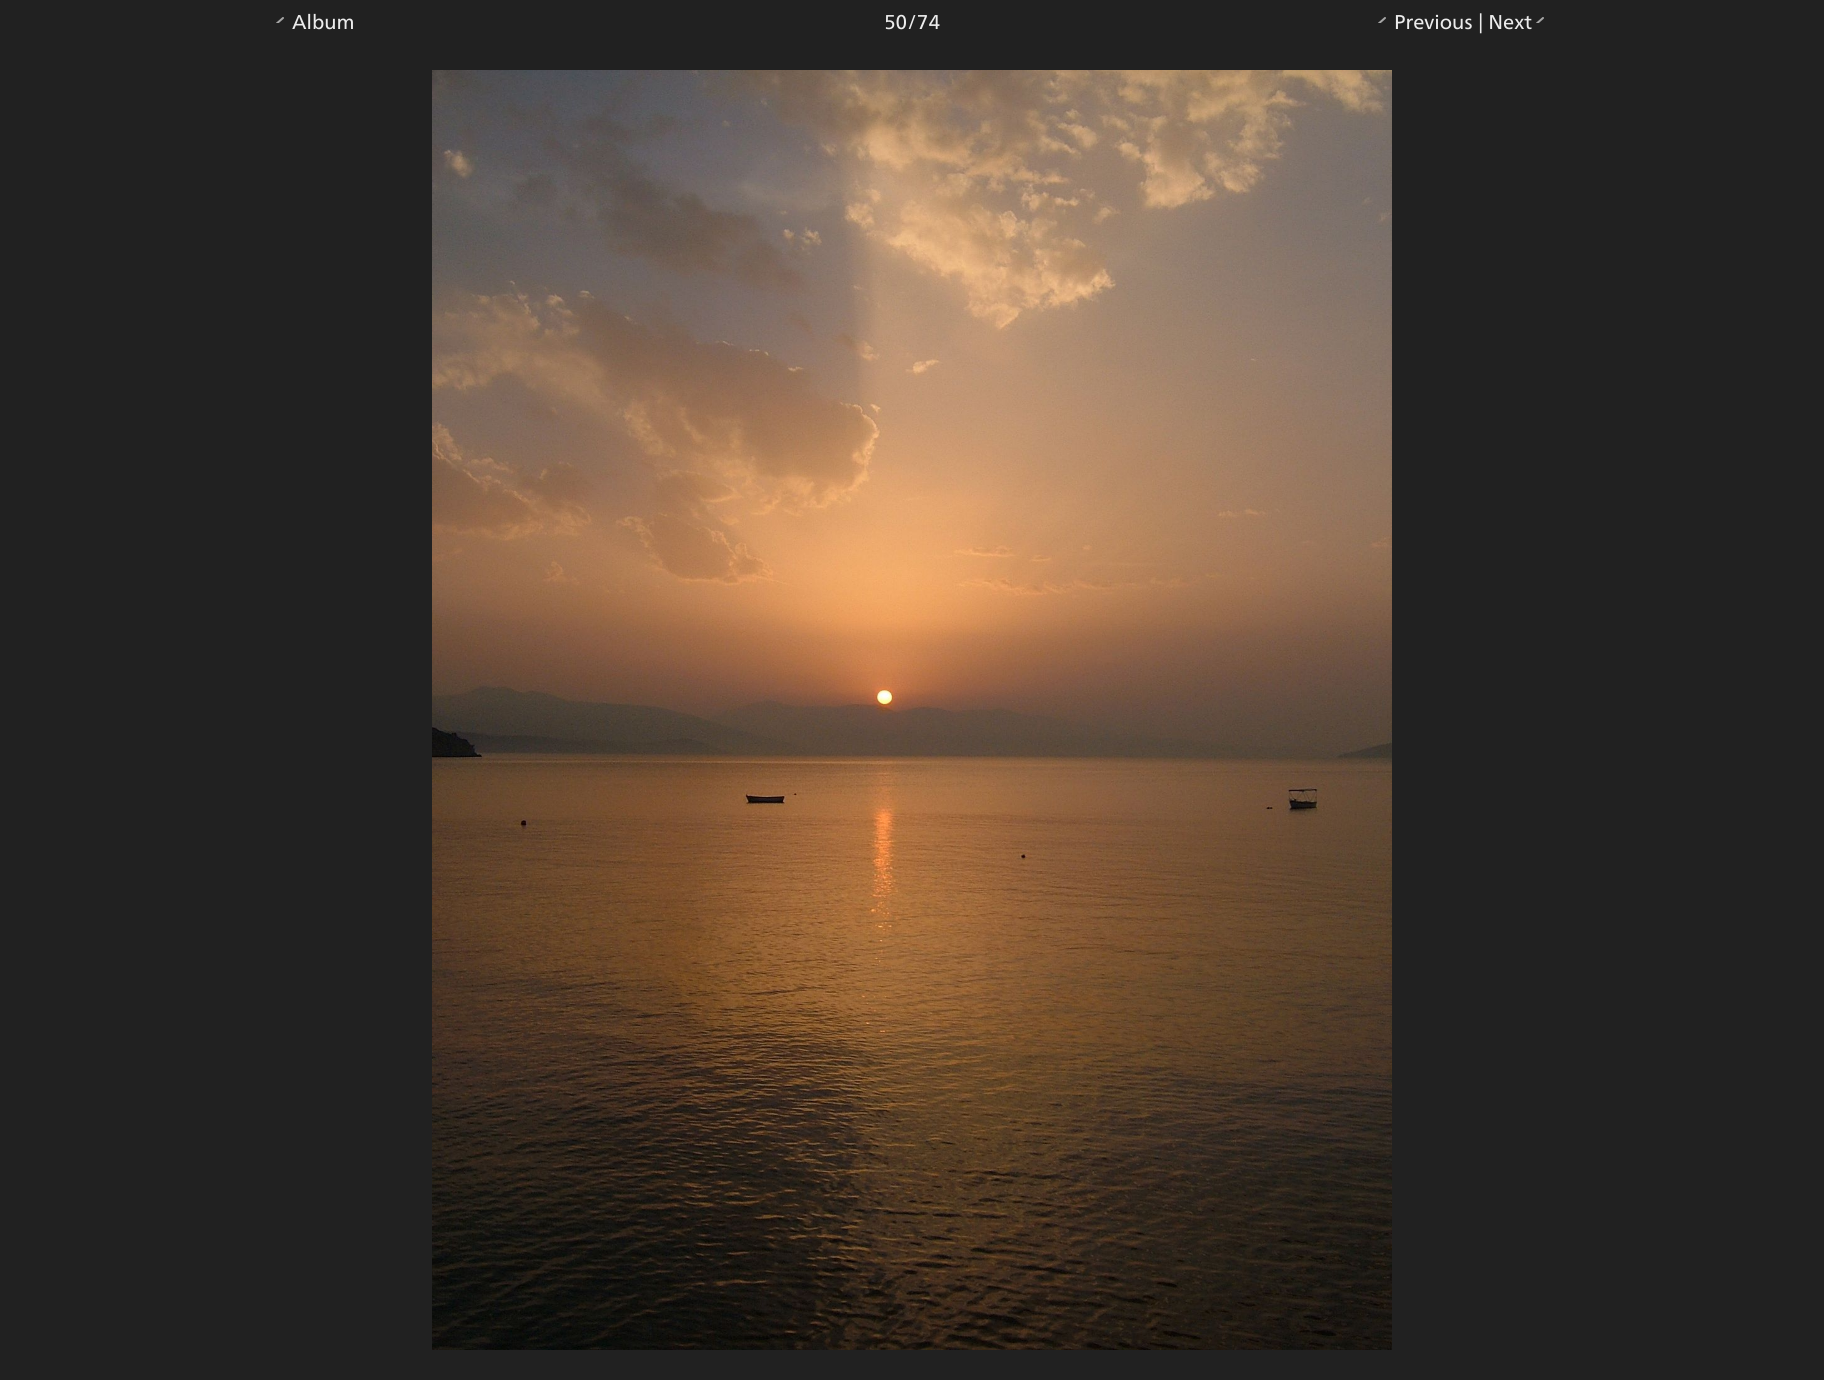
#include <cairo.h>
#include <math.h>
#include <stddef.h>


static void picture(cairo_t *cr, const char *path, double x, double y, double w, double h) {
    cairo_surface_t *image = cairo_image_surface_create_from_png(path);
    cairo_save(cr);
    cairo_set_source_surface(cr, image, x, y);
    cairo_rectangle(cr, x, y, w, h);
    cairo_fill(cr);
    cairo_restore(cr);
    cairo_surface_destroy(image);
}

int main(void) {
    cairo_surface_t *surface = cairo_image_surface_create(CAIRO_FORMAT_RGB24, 1824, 1380);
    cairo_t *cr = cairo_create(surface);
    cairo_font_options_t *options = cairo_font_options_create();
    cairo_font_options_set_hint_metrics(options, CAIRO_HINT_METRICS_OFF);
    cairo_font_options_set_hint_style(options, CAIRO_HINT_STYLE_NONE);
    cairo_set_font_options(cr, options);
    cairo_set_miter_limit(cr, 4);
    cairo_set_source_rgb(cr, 0.129, 0.129, 0.129);
    cairo_paint(cr);
    picture(cr, "img1.png", 276, 17, 8, 6);
    cairo_select_font_face(cr, "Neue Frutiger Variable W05", CAIRO_FONT_SLANT_NORMAL, CAIRO_FONT_WEIGHT_NORMAL);
    cairo_set_font_size(cr, 20);
    cairo_set_source_rgb(cr, 0.925, 0.925, 0.925);
    cairo_move_to(cr, 292, 29);
    cairo_show_text(cr, "Album");
    cairo_move_to(cr, 884, 29);
    cairo_show_text(cr, "50/74");
    picture(cr, "img1.png", 1378, 17, 8, 6);
    cairo_move_to(cr, 1394, 29);
    cairo_show_text(cr, "Previous");
    cairo_move_to(cr, 1478, 29);
    cairo_show_text(cr, "| Next");
    picture(cr, "img1.png", 1536, 17, 8, 6);
    picture(cr, "img2.png", 432, 70, 960, 1280);
    cairo_surface_write_to_png(surface, "page.png");
    cairo_font_options_destroy(options);
    cairo_destroy(cr);
    cairo_surface_destroy(surface);
    return 0;
}
